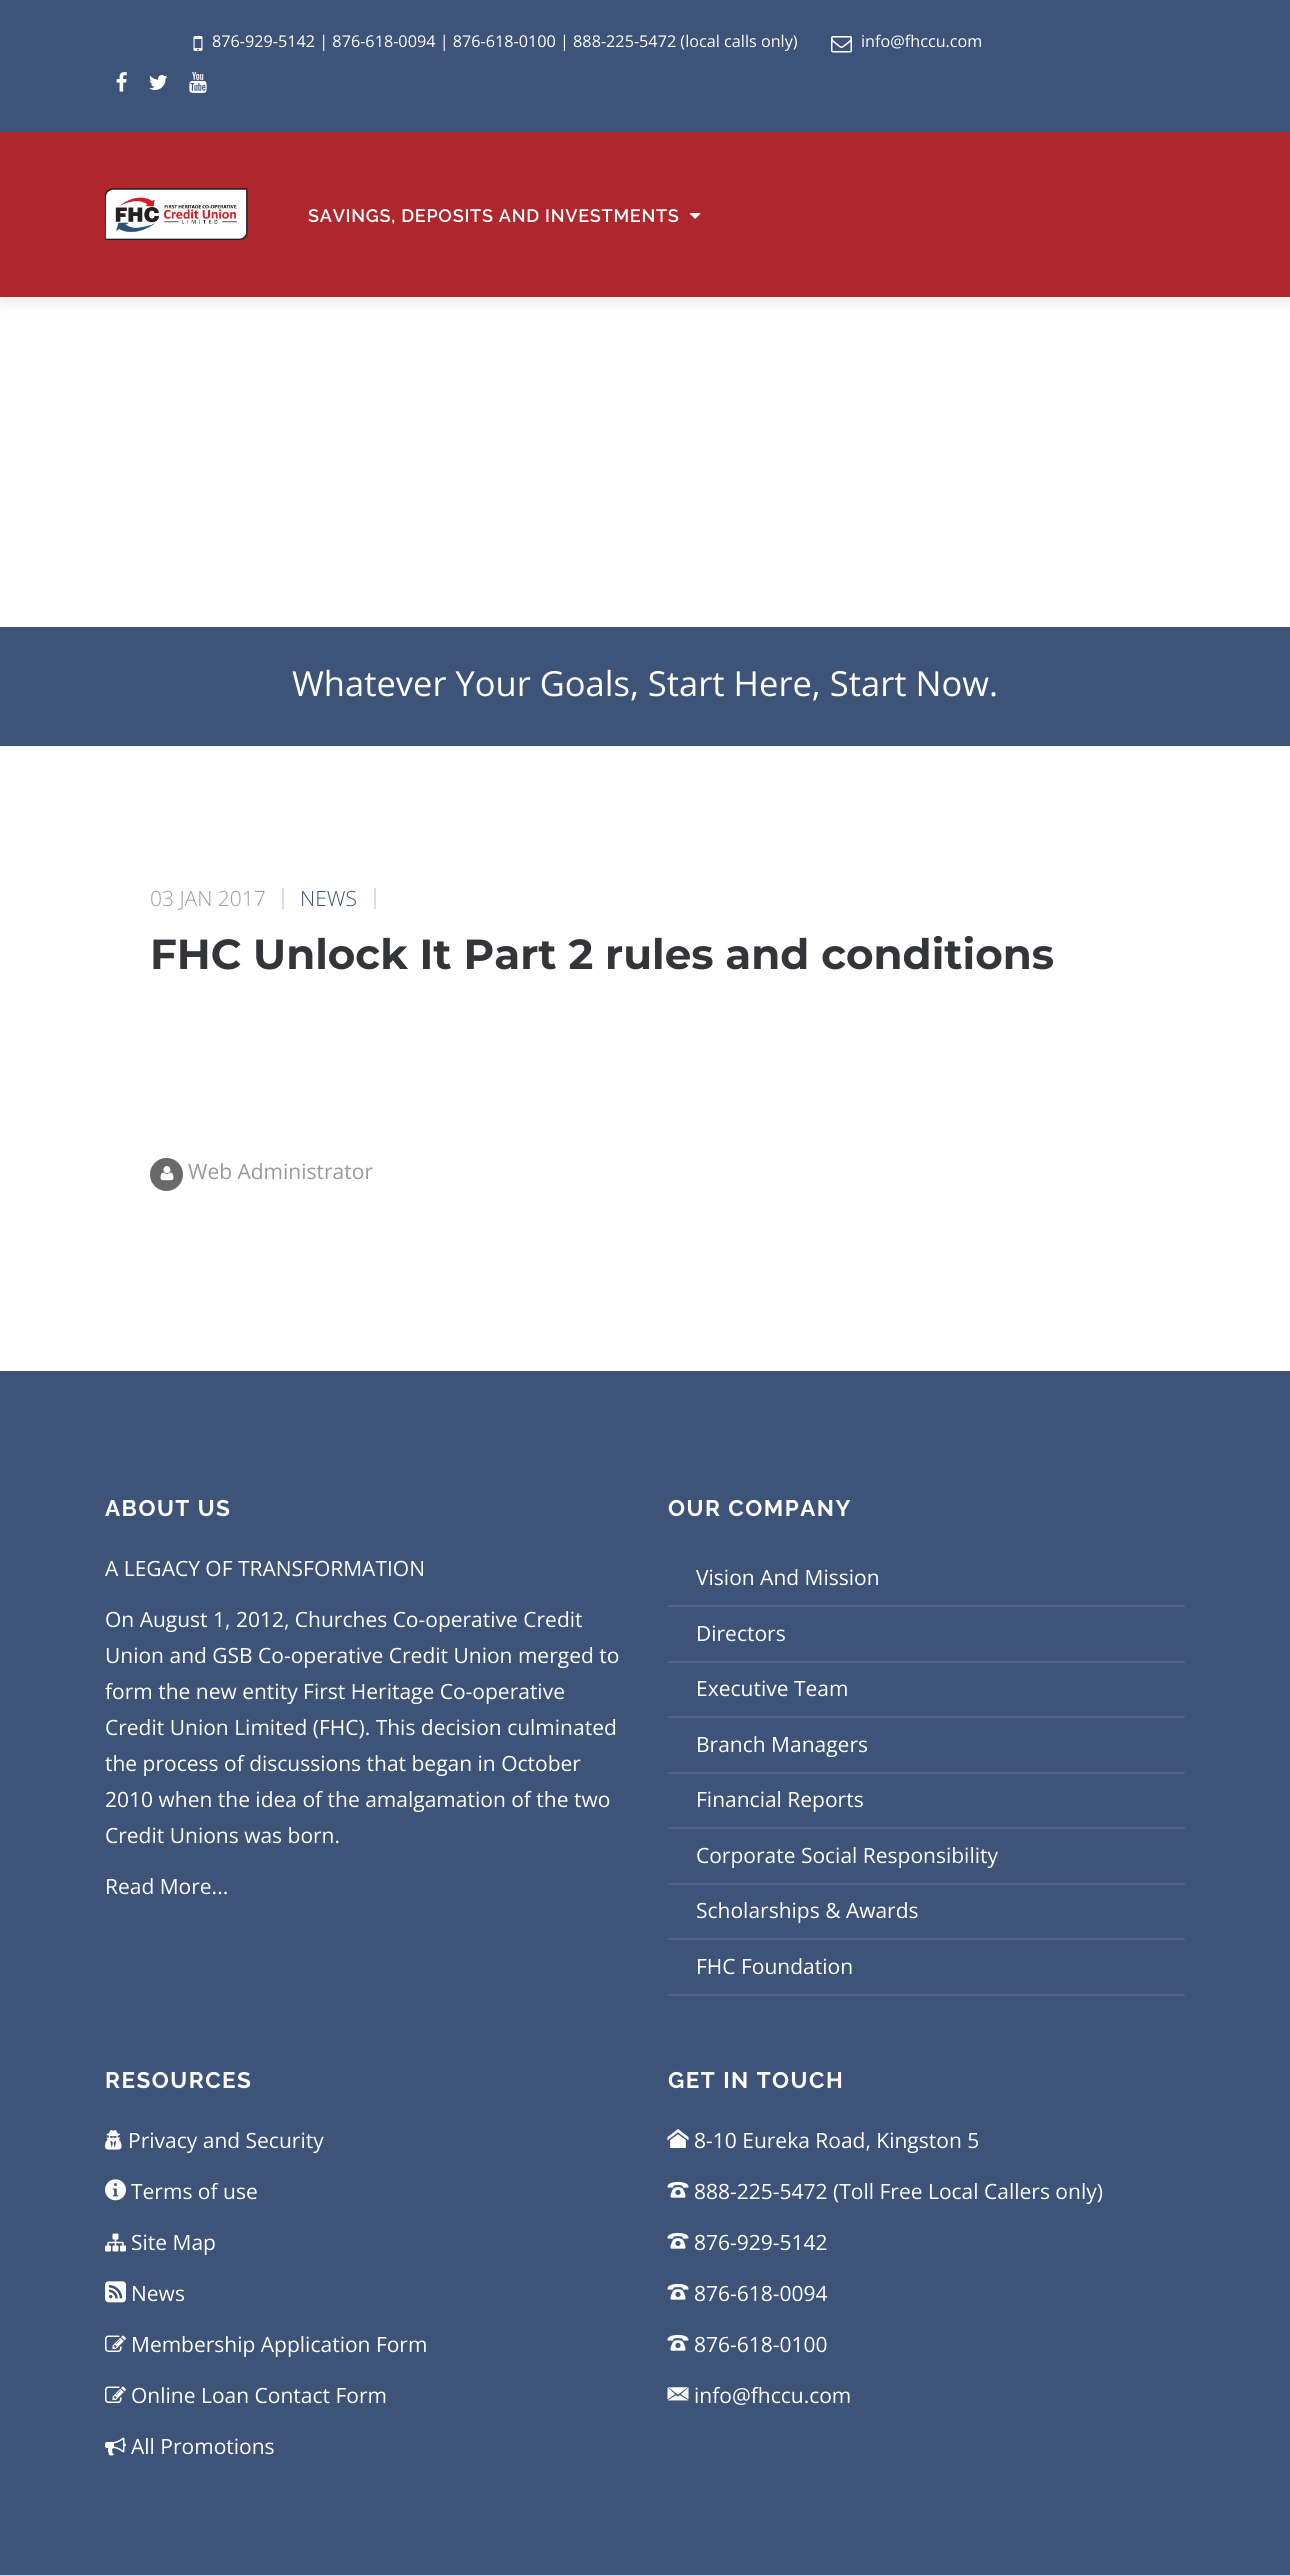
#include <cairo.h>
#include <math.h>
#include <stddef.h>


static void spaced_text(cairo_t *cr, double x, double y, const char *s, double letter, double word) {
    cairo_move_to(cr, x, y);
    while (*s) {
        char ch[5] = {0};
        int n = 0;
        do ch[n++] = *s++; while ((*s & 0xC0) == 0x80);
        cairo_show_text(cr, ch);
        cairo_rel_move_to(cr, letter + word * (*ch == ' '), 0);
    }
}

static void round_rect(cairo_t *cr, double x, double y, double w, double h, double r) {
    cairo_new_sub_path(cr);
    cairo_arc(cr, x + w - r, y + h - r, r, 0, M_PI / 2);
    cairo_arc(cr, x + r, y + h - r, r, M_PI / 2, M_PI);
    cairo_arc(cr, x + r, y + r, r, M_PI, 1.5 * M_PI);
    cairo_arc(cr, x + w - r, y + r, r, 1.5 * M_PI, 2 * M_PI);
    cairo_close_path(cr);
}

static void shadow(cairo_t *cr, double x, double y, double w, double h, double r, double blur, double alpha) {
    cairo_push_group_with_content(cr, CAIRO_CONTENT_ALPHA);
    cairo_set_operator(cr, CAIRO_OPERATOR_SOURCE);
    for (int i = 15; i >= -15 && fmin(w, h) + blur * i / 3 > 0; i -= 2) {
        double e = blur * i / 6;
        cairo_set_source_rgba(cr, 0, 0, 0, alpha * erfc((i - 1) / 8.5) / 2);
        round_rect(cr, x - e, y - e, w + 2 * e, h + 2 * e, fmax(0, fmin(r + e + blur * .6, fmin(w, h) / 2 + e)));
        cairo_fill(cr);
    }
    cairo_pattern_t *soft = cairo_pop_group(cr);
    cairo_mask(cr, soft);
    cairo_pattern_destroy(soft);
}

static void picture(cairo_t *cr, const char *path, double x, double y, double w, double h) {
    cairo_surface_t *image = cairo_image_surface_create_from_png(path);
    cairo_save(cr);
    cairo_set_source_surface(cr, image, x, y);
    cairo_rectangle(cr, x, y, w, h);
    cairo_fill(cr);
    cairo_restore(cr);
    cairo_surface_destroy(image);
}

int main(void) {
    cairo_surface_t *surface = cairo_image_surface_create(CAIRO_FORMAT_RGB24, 1290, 2575);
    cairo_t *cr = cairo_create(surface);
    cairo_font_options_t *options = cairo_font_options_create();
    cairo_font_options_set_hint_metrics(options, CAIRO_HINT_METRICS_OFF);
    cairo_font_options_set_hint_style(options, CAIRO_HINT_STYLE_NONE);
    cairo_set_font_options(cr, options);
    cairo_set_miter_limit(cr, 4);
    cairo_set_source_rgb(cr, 1, 1, 1);
    cairo_paint(cr);
    cairo_set_source_rgb(cr, 0.239, 0.325, 0.471);
    cairo_rectangle(cr, 0, 0, 1290, 132);
    cairo_fill(cr);
    picture(cr, "img1.png", 193, 36, 10, 15);
    cairo_select_font_face(cr, "Open Sans", CAIRO_FONT_SLANT_NORMAL, CAIRO_FONT_WEIGHT_NORMAL);
    cairo_set_font_size(cr, 16.2);
    cairo_set_source_rgb(cr, 1, 1, 1);
    cairo_move_to(cr, 212, 47);
    cairo_show_text(cr, "876-929-5142 | 876-618-0094 | 876-618-0100 | 888-225-5472 (local calls only)");
    picture(cr, "img2.png", 831, 36, 21, 17);
    cairo_move_to(cr, 861, 47);
    cairo_show_text(cr, "info@fhccu.com");
    picture(cr, "img3.png", 116, 72, 11, 20);
    picture(cr, "img4.png", 149, 75, 19, 15);
    picture(cr, "img5.png", 189, 72, 18, 21);
    cairo_set_source_rgb(cr, 0.267, 0.267, 0.267);
    shadow(cr, 0, 137, 1290, 165, 0, 7.5, 0.1);
    cairo_set_source_rgb(cr, 0.686, 0.153, 0.173);
    cairo_rectangle(cr, 0, 132, 1290, 165);
    cairo_fill(cr);
    picture(cr, "img6.png", 105, 188, 143, 52);
    cairo_select_font_face(cr, "Raleway SemiBold", CAIRO_FONT_SLANT_NORMAL, CAIRO_FONT_WEIGHT_NORMAL);
    cairo_set_font_size(cr, 18);
    cairo_set_source_rgb(cr, 1, 1, 1);
    spaced_text(cr, 308, 222, "SAVINGS, DEPOSITS AND INVESTMENTS", 0.75, 0);
    picture(cr, "img7.png", 690, 213, 11, 6);
    cairo_set_source_rgb(cr, 0.239, 0.325, 0.471);
    cairo_rectangle(cr, 0, 627, 1290, 119);
    cairo_fill(cr);
    cairo_select_font_face(cr, "Open Sans", CAIRO_FONT_SLANT_NORMAL, CAIRO_FONT_WEIGHT_NORMAL);
    cairo_set_font_size(cr, 34.5);
    cairo_set_source_rgb(cr, 1, 1, 1);
    cairo_move_to(cr, 292, 696);
    cairo_show_text(cr, "Whatever Your Goals, Start Here, Start Now.");
    cairo_set_source_rgb(cr, 0.867, 0.867, 0.867);
    cairo_rectangle(cr, 282, 888, 2, 21);
    cairo_fill(cr);
    cairo_select_font_face(cr, "Open Sans Light", CAIRO_FONT_SLANT_NORMAL, CAIRO_FONT_WEIGHT_NORMAL);
    cairo_set_font_size(cr, 21);
    cairo_set_source_rgb(cr, 0.588, 0.608, 0.635);
    cairo_move_to(cr, 150, 906);
    cairo_show_text(cr, "03 JAN 2017");
    cairo_set_source_rgb(cr, 0.867, 0.867, 0.867);
    cairo_rectangle(cr, 374, 888, 2, 21);
    cairo_fill(cr);
    cairo_set_source_rgb(cr, 0.239, 0.325, 0.471);
    cairo_move_to(cr, 300, 906);
    cairo_show_text(cr, "NEWS");
    cairo_select_font_face(cr, "Montserrat", CAIRO_FONT_SLANT_NORMAL, CAIRO_FONT_WEIGHT_BOLD);
    cairo_set_font_size(cr, 42);
    cairo_set_source_rgb(cr, 0.2, 0.208, 0.224);
    cairo_move_to(cr, 150, 969);
    cairo_show_text(cr, "FHC Unlock It Part 2 rules and conditions");
    cairo_set_source_rgb(cr, 0.412, 0.412, 0.412);
    cairo_new_path(cr);
    cairo_arc(cr, 166.5, 1174.5, 16.5, 0, 2 * M_PI);
    cairo_fill(cr);
    picture(cr, "img8.png", 160, 1166, 14, 15);
    cairo_select_font_face(cr, "Open Sans", CAIRO_FONT_SLANT_NORMAL, CAIRO_FONT_WEIGHT_NORMAL);
    cairo_set_font_size(cr, 21);
    cairo_set_source_rgb(cr, 0.6, 0.6, 0.6);
    cairo_move_to(cr, 188, 1179);
    cairo_show_text(cr, "Web Administrator");
    cairo_set_source_rgb(cr, 0.239, 0.325, 0.471);
    cairo_rectangle(cr, 0, 1371, 1290, 1204);
    cairo_fill(cr);
    cairo_select_font_face(cr, "Raleway", CAIRO_FONT_SLANT_NORMAL, CAIRO_FONT_WEIGHT_BOLD);
    cairo_set_font_size(cr, 22.5);
    cairo_set_source_rgb(cr, 1, 1, 1);
    spaced_text(cr, 105, 1516, "ABOUT US", 1.5, 0);
    cairo_select_font_face(cr, "Open Sans", CAIRO_FONT_SLANT_NORMAL, CAIRO_FONT_WEIGHT_NORMAL);
    cairo_set_font_size(cr, 21);
    cairo_move_to(cr, 105, 1576);
    cairo_show_text(cr, "A LEGACY OF TRANSFORMATION");
    cairo_move_to(cr, 105, 1627);
    cairo_show_text(cr, "On August 1, 2012, Churches Co-operative Credit");
    cairo_move_to(cr, 105, 1663);
    cairo_show_text(cr, "Union and GSB Co-operative Credit Union merged to");
    cairo_move_to(cr, 105, 1699);
    cairo_show_text(cr, "form the new entity First Heritage Co-operative");
    cairo_move_to(cr, 105, 1735);
    cairo_show_text(cr, "Credit Union Limited (FHC). This decision culminated");
    cairo_move_to(cr, 105, 1771);
    cairo_show_text(cr, "the process of discussions that began in October");
    cairo_move_to(cr, 105, 1807);
    cairo_show_text(cr, "2010 when the idea of the amalgamation of the two");
    cairo_move_to(cr, 105, 1843);
    cairo_show_text(cr, "Credit Unions was born.");
    cairo_move_to(cr, 105, 1894);
    cairo_show_text(cr, "Read More...");
    cairo_select_font_face(cr, "Raleway", CAIRO_FONT_SLANT_NORMAL, CAIRO_FONT_WEIGHT_BOLD);
    cairo_set_font_size(cr, 22.5);
    spaced_text(cr, 668, 1516, "OUR COMPANY", 1.5, 0);
    cairo_set_source_rgb(cr, 0.314, 0.392, 0.525);
    cairo_rectangle(cr, 668, 1605, 517, 2);
    cairo_fill(cr);
    cairo_select_font_face(cr, "Open Sans", CAIRO_FONT_SLANT_NORMAL, CAIRO_FONT_WEIGHT_NORMAL);
    cairo_set_font_size(cr, 21);
    cairo_set_source_rgb(cr, 1, 1, 1);
    cairo_move_to(cr, 696, 1585);
    cairo_show_text(cr, "Vision And Mission");
    cairo_set_source_rgb(cr, 0.314, 0.392, 0.525);
    cairo_rectangle(cr, 668, 1661, 517, 2);
    cairo_fill(cr);
    cairo_set_source_rgb(cr, 1, 1, 1);
    cairo_move_to(cr, 696, 1641);
    cairo_show_text(cr, "Directors");
    cairo_set_source_rgb(cr, 0.314, 0.392, 0.525);
    cairo_rectangle(cr, 668, 1716, 517, 2);
    cairo_fill(cr);
    cairo_set_source_rgb(cr, 1, 1, 1);
    cairo_move_to(cr, 696, 1696);
    cairo_show_text(cr, "Executive Team");
    cairo_set_source_rgb(cr, 0.314, 0.392, 0.525);
    cairo_rectangle(cr, 668, 1772, 517, 2);
    cairo_fill(cr);
    cairo_set_source_rgb(cr, 1, 1, 1);
    cairo_move_to(cr, 696, 1752);
    cairo_show_text(cr, "Branch Managers");
    cairo_set_source_rgb(cr, 0.314, 0.392, 0.525);
    cairo_rectangle(cr, 668, 1827, 517, 2);
    cairo_fill(cr);
    cairo_set_source_rgb(cr, 1, 1, 1);
    cairo_move_to(cr, 696, 1807);
    cairo_show_text(cr, "Financial Reports");
    cairo_set_source_rgb(cr, 0.314, 0.392, 0.525);
    cairo_rectangle(cr, 668, 1883, 517, 2);
    cairo_fill(cr);
    cairo_set_source_rgb(cr, 1, 1, 1);
    cairo_move_to(cr, 696, 1863);
    cairo_show_text(cr, "Corporate Social Responsibility");
    cairo_set_source_rgb(cr, 0.314, 0.392, 0.525);
    cairo_rectangle(cr, 668, 1938, 517, 2);
    cairo_fill(cr);
    cairo_set_source_rgb(cr, 1, 1, 1);
    cairo_move_to(cr, 696, 1918);
    cairo_show_text(cr, "Scholarships & Awards");
    cairo_set_source_rgb(cr, 0.314, 0.392, 0.525);
    cairo_rectangle(cr, 668, 1994, 517, 2);
    cairo_fill(cr);
    cairo_set_source_rgb(cr, 1, 1, 1);
    cairo_move_to(cr, 696, 1974);
    cairo_show_text(cr, "FHC Foundation");
    cairo_select_font_face(cr, "Raleway", CAIRO_FONT_SLANT_NORMAL, CAIRO_FONT_WEIGHT_BOLD);
    cairo_set_font_size(cr, 22.5);
    spaced_text(cr, 105, 2088, "RESOURCES", 1.5, 0);
    picture(cr, "img9.png", 105, 2130, 17, 20);
    cairo_select_font_face(cr, "Open Sans", CAIRO_FONT_SLANT_NORMAL, CAIRO_FONT_WEIGHT_NORMAL);
    cairo_set_font_size(cr, 21);
    cairo_move_to(cr, 128, 2148);
    cairo_show_text(cr, "Privacy and Security");
    picture(cr, "img10.png", 105, 2179, 21, 22);
    cairo_move_to(cr, 131, 2199);
    cairo_show_text(cr, "Terms of use");
    picture(cr, "img11.png", 105, 2233, 21, 19);
    cairo_move_to(cr, 131, 2250);
    cairo_show_text(cr, "Site Map");
    picture(cr, "img12.png", 105, 2281, 21, 22);
    cairo_move_to(cr, 131, 2301);
    cairo_show_text(cr, "News");
    picture(cr, "img13.png", 105, 2335, 21, 17);
    cairo_move_to(cr, 131, 2352);
    cairo_show_text(cr, "Membership Application Form");
    picture(cr, "img13.png", 105, 2386, 21, 17);
    cairo_move_to(cr, 131, 2403);
    cairo_show_text(cr, "Online Loan Contact Form");
    picture(cr, "img14.png", 105, 2437, 21, 19);
    cairo_move_to(cr, 131, 2454);
    cairo_show_text(cr, "All Promotions");
    cairo_select_font_face(cr, "Raleway", CAIRO_FONT_SLANT_NORMAL, CAIRO_FONT_WEIGHT_BOLD);
    cairo_set_font_size(cr, 22.5);
    spaced_text(cr, 668, 2088, "GET IN TOUCH", 1.5, 0);
    picture(cr, "img15.png", 667, 2129, 22, 19);
    cairo_select_font_face(cr, "Open Sans", CAIRO_FONT_SLANT_NORMAL, CAIRO_FONT_WEIGHT_NORMAL);
    cairo_set_font_size(cr, 21);
    cairo_move_to(cr, 694, 2148);
    cairo_show_text(cr, "8-10 Eureka Road, Kingston 5");
    picture(cr, "img16.png", 667, 2181, 22, 17);
    cairo_move_to(cr, 694, 2199);
    cairo_show_text(cr, "888-225-5472 (Toll Free Local Callers only)");
    picture(cr, "img16.png", 667, 2232, 22, 17);
    cairo_move_to(cr, 694, 2250);
    cairo_show_text(cr, "876-929-5142");
    picture(cr, "img16.png", 667, 2283, 22, 17);
    cairo_move_to(cr, 694, 2301);
    cairo_show_text(cr, "876-618-0094");
    picture(cr, "img16.png", 667, 2334, 22, 17);
    cairo_move_to(cr, 694, 2352);
    cairo_show_text(cr, "876-618-0100");
    picture(cr, "img17.png", 667, 2387, 22, 14);
    cairo_move_to(cr, 694, 2403);
    cairo_show_text(cr, "info@fhccu.com");
    cairo_surface_write_to_png(surface, "page.png");
    cairo_font_options_destroy(options);
    cairo_destroy(cr);
    cairo_surface_destroy(surface);
    return 0;
}
